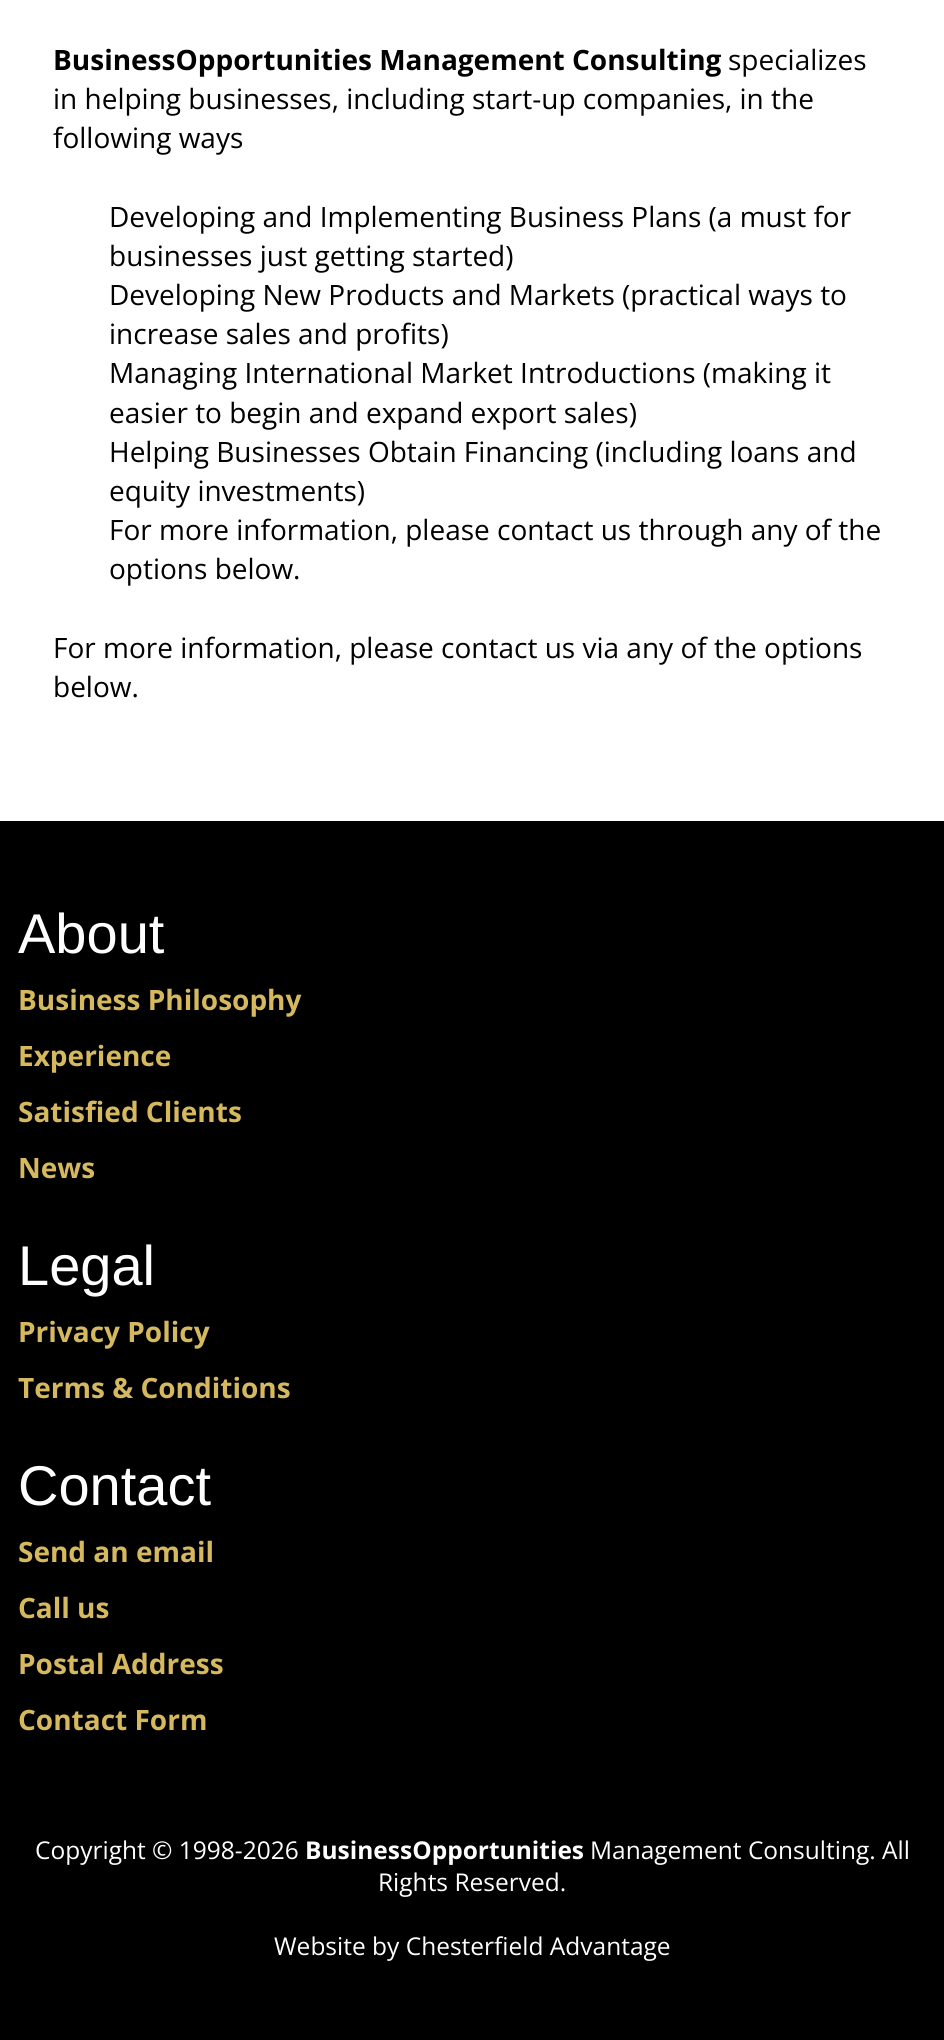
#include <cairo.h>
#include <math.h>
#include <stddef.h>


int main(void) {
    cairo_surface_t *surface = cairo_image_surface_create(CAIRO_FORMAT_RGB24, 944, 2040);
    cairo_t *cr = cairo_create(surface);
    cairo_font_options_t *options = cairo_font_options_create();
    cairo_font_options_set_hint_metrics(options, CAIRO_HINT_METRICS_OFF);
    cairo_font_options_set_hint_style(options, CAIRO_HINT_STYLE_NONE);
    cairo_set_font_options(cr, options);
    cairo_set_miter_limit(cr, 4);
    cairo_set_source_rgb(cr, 1, 1, 1);
    cairo_paint(cr);
    cairo_select_font_face(cr, "Open Sans", CAIRO_FONT_SLANT_NORMAL, CAIRO_FONT_WEIGHT_BOLD);
    cairo_set_font_size(cr, 28);
    cairo_set_source_rgb(cr, 0, 0, 0);
    cairo_move_to(cr, 53, 70);
    cairo_show_text(cr, "BusinessOpportunities Management Consulting");
    cairo_select_font_face(cr, "Open Sans", CAIRO_FONT_SLANT_NORMAL, CAIRO_FONT_WEIGHT_NORMAL);
    cairo_move_to(cr, 728, 70);
    cairo_show_text(cr, "specializes");
    cairo_move_to(cr, 53, 109);
    cairo_show_text(cr, "in helping businesses, including start-up companies, in the");
    cairo_move_to(cr, 53, 148);
    cairo_show_text(cr, "following ways");
    cairo_move_to(cr, 109, 227);
    cairo_show_text(cr, "Developing and Implementing Business Plans (a must for");
    cairo_move_to(cr, 109, 266);
    cairo_show_text(cr, "businesses just getting started)");
    cairo_move_to(cr, 109, 305);
    cairo_show_text(cr, "Developing New Products and Markets (practical ways to");
    cairo_move_to(cr, 109, 344);
    cairo_show_text(cr, "increase sales and profits)");
    cairo_move_to(cr, 109, 383);
    cairo_show_text(cr, "Managing International Market Introductions (making it");
    cairo_move_to(cr, 109, 423);
    cairo_show_text(cr, "easier to begin and expand export sales)");
    cairo_move_to(cr, 109, 462);
    cairo_show_text(cr, "Helping Businesses Obtain Financing (including loans and");
    cairo_move_to(cr, 109, 501);
    cairo_show_text(cr, "equity investments)");
    cairo_move_to(cr, 109, 540);
    cairo_show_text(cr, "For more information, please contact us through any of the");
    cairo_move_to(cr, 109, 579);
    cairo_show_text(cr, "options below.");
    cairo_move_to(cr, 53, 658);
    cairo_show_text(cr, "For more information, please contact us via any of the options");
    cairo_move_to(cr, 53, 697);
    cairo_show_text(cr, "below.");
    cairo_rectangle(cr, 0, 821, 944, 1219);
    cairo_fill(cr);
    cairo_select_font_face(cr, "Liberation Sans", CAIRO_FONT_SLANT_NORMAL, CAIRO_FONT_WEIGHT_NORMAL);
    cairo_set_font_size(cr, 56);
    cairo_set_source_rgb(cr, 1, 1, 1);
    cairo_move_to(cr, 18, 953);
    cairo_show_text(cr, "About");
    cairo_select_font_face(cr, "Open Sans", CAIRO_FONT_SLANT_NORMAL, CAIRO_FONT_WEIGHT_BOLD);
    cairo_set_font_size(cr, 28);
    cairo_set_source_rgb(cr, 0.839, 0.725, 0.369);
    cairo_move_to(cr, 18, 1010);
    cairo_show_text(cr, "Business Philosophy");
    cairo_move_to(cr, 18, 1066);
    cairo_show_text(cr, "Experience");
    cairo_move_to(cr, 18, 1122);
    cairo_show_text(cr, "Satisfied Clients");
    cairo_move_to(cr, 18, 1178);
    cairo_show_text(cr, "News");
    cairo_select_font_face(cr, "Liberation Sans", CAIRO_FONT_SLANT_NORMAL, CAIRO_FONT_WEIGHT_NORMAL);
    cairo_set_font_size(cr, 56);
    cairo_set_source_rgb(cr, 1, 1, 1);
    cairo_move_to(cr, 18, 1285);
    cairo_show_text(cr, "Legal");
    cairo_select_font_face(cr, "Open Sans", CAIRO_FONT_SLANT_NORMAL, CAIRO_FONT_WEIGHT_BOLD);
    cairo_set_font_size(cr, 28);
    cairo_set_source_rgb(cr, 0.839, 0.725, 0.369);
    cairo_move_to(cr, 18, 1342);
    cairo_show_text(cr, "Privacy Policy");
    cairo_move_to(cr, 18, 1398);
    cairo_show_text(cr, "Terms & Conditions");
    cairo_select_font_face(cr, "Liberation Sans", CAIRO_FONT_SLANT_NORMAL, CAIRO_FONT_WEIGHT_NORMAL);
    cairo_set_font_size(cr, 56);
    cairo_set_source_rgb(cr, 1, 1, 1);
    cairo_move_to(cr, 18, 1505);
    cairo_show_text(cr, "Contact");
    cairo_select_font_face(cr, "Open Sans", CAIRO_FONT_SLANT_NORMAL, CAIRO_FONT_WEIGHT_BOLD);
    cairo_set_font_size(cr, 28);
    cairo_set_source_rgb(cr, 0.839, 0.725, 0.369);
    cairo_move_to(cr, 18, 1562);
    cairo_show_text(cr, "Send an email");
    cairo_move_to(cr, 18, 1618);
    cairo_show_text(cr, "Call us");
    cairo_move_to(cr, 18, 1674);
    cairo_show_text(cr, "Postal Address");
    cairo_move_to(cr, 18, 1730);
    cairo_show_text(cr, "Contact Form");
    cairo_select_font_face(cr, "Open Sans", CAIRO_FONT_SLANT_NORMAL, CAIRO_FONT_WEIGHT_NORMAL);
    cairo_set_font_size(cr, 24.5);
    cairo_set_source_rgb(cr, 1, 1, 1);
    cairo_move_to(cr, 35, 1859);
    cairo_show_text(cr, "Copyright © 1998-2026");
    cairo_select_font_face(cr, "Open Sans", CAIRO_FONT_SLANT_NORMAL, CAIRO_FONT_WEIGHT_BOLD);
    cairo_move_to(cr, 305, 1859);
    cairo_show_text(cr, "BusinessOpportunities");
    cairo_select_font_face(cr, "Open Sans", CAIRO_FONT_SLANT_NORMAL, CAIRO_FONT_WEIGHT_NORMAL);
    cairo_move_to(cr, 590, 1859);
    cairo_show_text(cr, "Management Consulting. All");
    cairo_move_to(cr, 378, 1891);
    cairo_show_text(cr, "Rights Reserved.");
    cairo_move_to(cr, 274, 1955);
    cairo_show_text(cr, "Website by Chesterfield Advantage");
    cairo_surface_write_to_png(surface, "page.png");
    cairo_font_options_destroy(options);
    cairo_destroy(cr);
    cairo_surface_destroy(surface);
    return 0;
}
